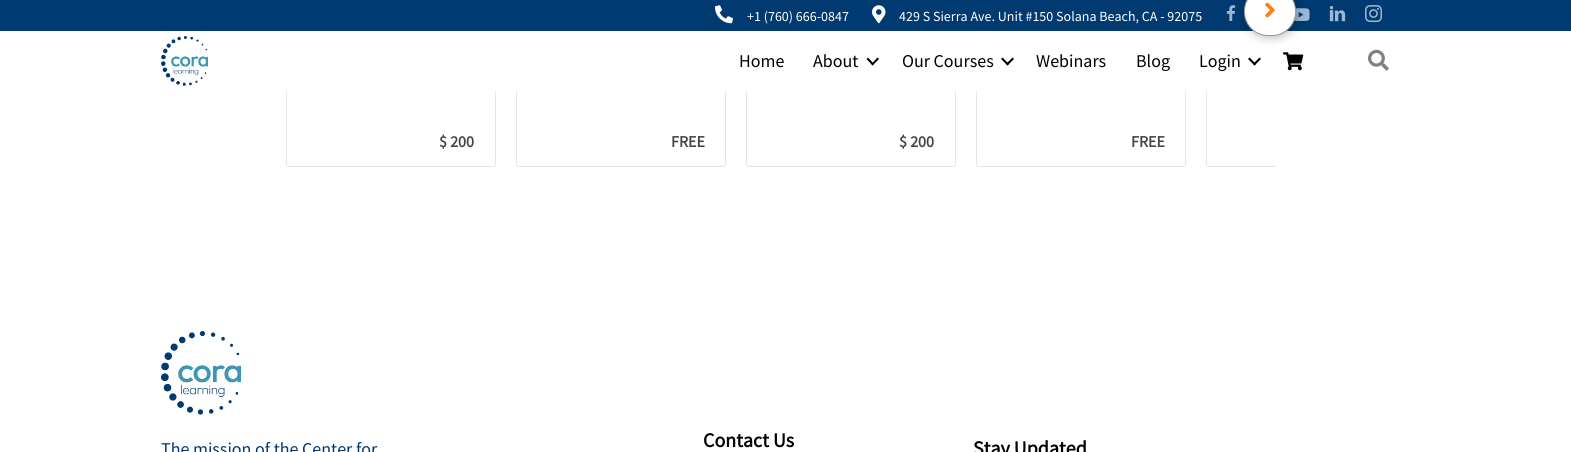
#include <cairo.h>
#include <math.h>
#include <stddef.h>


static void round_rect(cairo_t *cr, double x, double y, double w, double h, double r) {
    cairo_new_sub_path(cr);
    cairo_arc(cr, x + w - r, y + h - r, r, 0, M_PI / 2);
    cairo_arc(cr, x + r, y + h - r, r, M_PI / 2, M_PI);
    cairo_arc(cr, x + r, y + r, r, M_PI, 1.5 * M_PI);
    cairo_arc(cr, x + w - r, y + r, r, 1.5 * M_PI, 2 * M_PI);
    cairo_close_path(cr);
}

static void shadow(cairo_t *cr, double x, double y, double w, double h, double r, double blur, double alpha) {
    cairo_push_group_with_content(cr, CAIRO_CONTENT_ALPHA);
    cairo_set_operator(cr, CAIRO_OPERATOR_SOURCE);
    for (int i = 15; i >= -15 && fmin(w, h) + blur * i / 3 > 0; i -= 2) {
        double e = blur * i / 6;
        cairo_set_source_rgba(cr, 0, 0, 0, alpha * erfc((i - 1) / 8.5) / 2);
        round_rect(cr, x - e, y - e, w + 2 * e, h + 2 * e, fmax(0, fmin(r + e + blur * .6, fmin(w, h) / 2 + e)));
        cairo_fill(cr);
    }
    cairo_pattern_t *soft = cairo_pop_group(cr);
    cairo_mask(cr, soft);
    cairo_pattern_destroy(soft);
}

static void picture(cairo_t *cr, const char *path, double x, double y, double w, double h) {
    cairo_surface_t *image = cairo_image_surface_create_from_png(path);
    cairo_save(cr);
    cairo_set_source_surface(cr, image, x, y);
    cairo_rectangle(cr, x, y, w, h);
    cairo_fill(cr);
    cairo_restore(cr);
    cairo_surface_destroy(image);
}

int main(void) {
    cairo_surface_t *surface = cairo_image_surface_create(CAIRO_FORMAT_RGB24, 1571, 452);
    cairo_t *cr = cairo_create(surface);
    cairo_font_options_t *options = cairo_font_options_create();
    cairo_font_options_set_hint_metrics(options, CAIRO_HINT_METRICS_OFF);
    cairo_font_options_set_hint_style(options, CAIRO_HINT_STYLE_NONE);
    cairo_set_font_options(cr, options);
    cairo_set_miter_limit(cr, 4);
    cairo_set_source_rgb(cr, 1, 1, 1);
    cairo_paint(cr);
    round_rect(cr, 286.5, -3.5, 209, 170, 2.5);
    cairo_set_source_rgb(cr, 0.898, 0.898, 0.898);
    cairo_set_line_width(cr, 1);
    cairo_stroke(cr);
    round_rect(cr, 516.5, -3.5, 209, 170, 2.5);
    cairo_stroke(cr);
    round_rect(cr, 746.5, -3.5, 209, 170, 2.5);
    cairo_stroke(cr);
    round_rect(cr, 976.5, -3.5, 209, 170, 2.5);
    cairo_stroke(cr);
    cairo_save(cr);
    cairo_rectangle(cr, 276, 0, 1000, 191);
    cairo_clip(cr);
    round_rect(cr, 1206.5, -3.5, 209, 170, 2.5);
    cairo_stroke(cr);
    cairo_restore(cr);
    cairo_set_source_rgb(cr, 0, 0.227, 0.439);
    cairo_rectangle(cr, 0, 0, 1571, 31);
    cairo_fill(cr);
    picture(cr, "img1.png", 715, 5, 18, 19);
    cairo_select_font_face(cr, "Source Sans Pro", CAIRO_FONT_SLANT_NORMAL, CAIRO_FONT_WEIGHT_NORMAL);
    cairo_set_font_size(cr, 14);
    cairo_set_source_rgb(cr, 1, 1, 1);
    cairo_move_to(cr, 747, 21);
    cairo_show_text(cr, "+1 (760) 666-0847");
    picture(cr, "img2.png", 872, 5, 14, 19);
    cairo_move_to(cr, 899, 21);
    cairo_show_text(cr, "429 S Sierra Ave. Unit #150 Solana Beach, CA - 92075");
    picture(cr, "img3.png", 1226, 5, 10, 16);
    picture(cr, "img4.png", 1294, 8, 16, 13);
    picture(cr, "img5.png", 1329, 5, 17, 17);
    picture(cr, "img6.png", 1365, 5, 17, 18);
    cairo_rectangle(cr, 286, 31, 921, 60);
    cairo_fill(cr);
    picture(cr, "img7.png", 161, 36, 47, 50);
    cairo_set_font_size(cr, 18);
    cairo_set_source_rgb(cr, 0, 0, 0);
    cairo_move_to(cr, 739, 67);
    cairo_show_text(cr, "Home");
    cairo_move_to(cr, 813, 67);
    cairo_show_text(cr, "About");
    cairo_new_path(cr);
    cairo_move_to(cr, 877.5, 57.5);
    cairo_line_to(cr, 879, 59);
    cairo_line_to(cr, 872.5, 65.5);
    cairo_line_to(cr, 871.5, 64);
    cairo_close_path(cr);
    cairo_fill(cr);
    cairo_new_path(cr);
    cairo_move_to(cr, 868, 57.5);
    cairo_line_to(cr, 874, 64);
    cairo_line_to(cr, 872.5, 65.5);
    cairo_line_to(cr, 866.5, 59);
    cairo_close_path(cr);
    cairo_fill(cr);
    cairo_move_to(cr, 902, 67);
    cairo_show_text(cr, "Our Courses");
    cairo_new_path(cr);
    cairo_move_to(cr, 1012.5, 57.5);
    cairo_line_to(cr, 1014, 59);
    cairo_line_to(cr, 1007.5, 65.5);
    cairo_line_to(cr, 1006, 64);
    cairo_close_path(cr);
    cairo_fill(cr);
    cairo_new_path(cr);
    cairo_move_to(cr, 1002.5, 57.5);
    cairo_line_to(cr, 1009, 64);
    cairo_line_to(cr, 1007.5, 65.5);
    cairo_line_to(cr, 1001, 59);
    cairo_close_path(cr);
    cairo_fill(cr);
    cairo_move_to(cr, 1036, 67);
    cairo_show_text(cr, "Webinars");
    cairo_move_to(cr, 1136, 67);
    cairo_show_text(cr, "Blog");
    cairo_move_to(cr, 1199, 67);
    cairo_show_text(cr, "Login");
    cairo_new_path(cr);
    cairo_move_to(cr, 1259.5, 57.5);
    cairo_line_to(cr, 1261, 59);
    cairo_line_to(cr, 1254.5, 65.5);
    cairo_line_to(cr, 1253, 64);
    cairo_close_path(cr);
    cairo_fill(cr);
    cairo_new_path(cr);
    cairo_move_to(cr, 1249.5, 57.5);
    cairo_line_to(cr, 1256, 64);
    cairo_line_to(cr, 1254.5, 65.5);
    cairo_line_to(cr, 1248, 59);
    cairo_close_path(cr);
    cairo_fill(cr);
    picture(cr, "img8.png", 1283, 52, 21, 19);
    picture(cr, "img9.png", 1368, 49, 21, 22);
    cairo_set_source_rgb(cr, 0, 0, 0);
    shadow(cr, 1246, -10, 50, 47, 23, 5, 0.3);
    cairo_set_source_rgb(cr, 1, 1, 1);
    round_rect(cr, 1244.5, -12.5, 51, 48, 23.5);
    cairo_fill_preserve(cr);
    cairo_set_source_rgb(cr, 0.6, 0.6, 0.6);
    cairo_stroke(cr);
    picture(cr, "img10.png", 1265, 2, 10, 16);
    cairo_select_font_face(cr, "Source Sans Pro", CAIRO_FONT_SLANT_NORMAL, CAIRO_FONT_WEIGHT_BOLD);
    cairo_set_font_size(cr, 16);
    cairo_set_source_rgb(cr, 0.267, 0.267, 0.267);
    cairo_move_to(cr, 439, 147);
    cairo_show_text(cr, "$ 200");
    cairo_move_to(cr, 671, 147);
    cairo_show_text(cr, "FREE");
    cairo_move_to(cr, 899, 147);
    cairo_show_text(cr, "$ 200");
    cairo_move_to(cr, 1131, 147);
    cairo_show_text(cr, "FREE");
    picture(cr, "img11.png", 161, 331, 80, 84);
    cairo_select_font_face(cr, "Source Sans Pro", CAIRO_FONT_SLANT_NORMAL, CAIRO_FONT_WEIGHT_NORMAL);
    cairo_set_font_size(cr, 18);
    cairo_set_source_rgb(cr, 0, 0.227, 0.439);
    cairo_move_to(cr, 161, 455);
    cairo_show_text(cr, "The mission of the Center for");
    cairo_select_font_face(cr, "Source Sans Pro", CAIRO_FONT_SLANT_NORMAL, CAIRO_FONT_WEIGHT_BOLD);
    cairo_set_font_size(cr, 20);
    cairo_set_source_rgb(cr, 0, 0, 0);
    cairo_move_to(cr, 703, 447);
    cairo_show_text(cr, "Contact Us");
    cairo_move_to(cr, 973, 455);
    cairo_show_text(cr, "Stay Updated");
    cairo_surface_write_to_png(surface, "page.png");
    cairo_font_options_destroy(options);
    cairo_destroy(cr);
    cairo_surface_destroy(surface);
    return 0;
}
